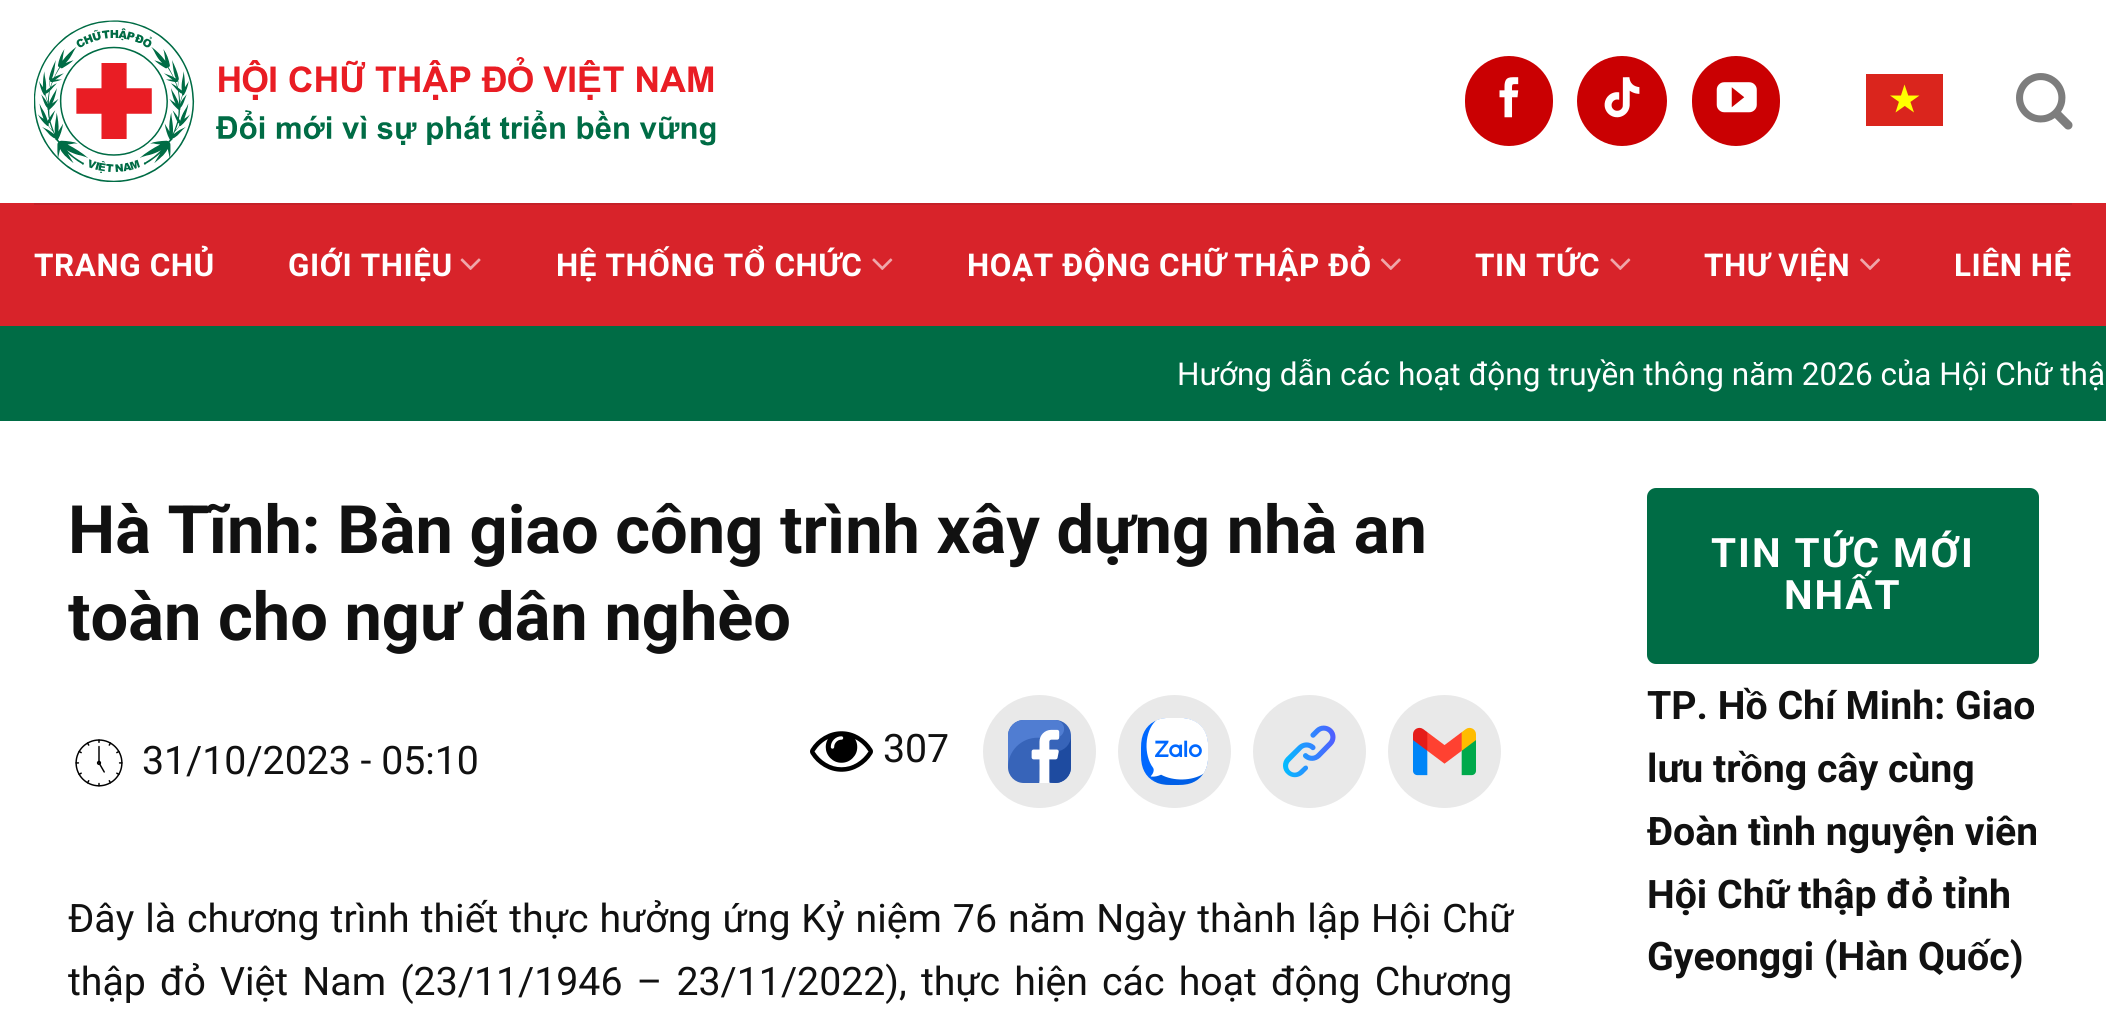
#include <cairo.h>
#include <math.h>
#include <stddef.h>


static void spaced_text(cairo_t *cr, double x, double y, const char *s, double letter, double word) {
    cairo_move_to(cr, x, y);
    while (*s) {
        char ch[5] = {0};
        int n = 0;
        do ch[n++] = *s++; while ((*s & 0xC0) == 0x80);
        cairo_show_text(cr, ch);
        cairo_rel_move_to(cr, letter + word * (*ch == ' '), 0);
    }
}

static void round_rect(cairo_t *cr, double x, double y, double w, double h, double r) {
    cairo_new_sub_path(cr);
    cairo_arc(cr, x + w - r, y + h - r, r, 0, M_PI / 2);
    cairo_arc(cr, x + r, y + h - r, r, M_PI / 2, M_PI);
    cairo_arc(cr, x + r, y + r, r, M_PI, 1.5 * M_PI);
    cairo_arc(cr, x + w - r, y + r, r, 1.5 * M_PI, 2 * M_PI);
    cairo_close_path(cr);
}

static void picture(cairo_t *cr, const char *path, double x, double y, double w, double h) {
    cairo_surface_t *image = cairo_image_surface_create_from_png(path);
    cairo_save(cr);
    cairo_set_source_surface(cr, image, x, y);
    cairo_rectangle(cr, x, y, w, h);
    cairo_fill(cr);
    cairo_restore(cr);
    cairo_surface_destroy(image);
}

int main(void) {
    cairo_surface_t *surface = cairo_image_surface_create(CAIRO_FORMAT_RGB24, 2106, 1023);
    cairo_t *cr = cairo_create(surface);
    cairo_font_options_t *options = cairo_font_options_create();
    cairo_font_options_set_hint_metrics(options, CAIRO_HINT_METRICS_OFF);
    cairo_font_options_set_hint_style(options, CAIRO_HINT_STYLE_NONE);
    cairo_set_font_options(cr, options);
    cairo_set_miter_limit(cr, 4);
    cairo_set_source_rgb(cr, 1, 1, 1);
    cairo_paint(cr);
    picture(cr, "img1.png", 34, 20, 682, 162);
    cairo_set_source_rgb(cr, 0.792, 0, 0.008);
    round_rect(cr, 1465, 56, 88, 90, 44);
    cairo_fill(cr);
    picture(cr, "img2.png", 1499, 77, 20, 41);
    cairo_arc(cr, 1622, 101, 45, 0, 2 * M_PI);
    cairo_fill(cr);
    picture(cr, "img3.png", 1604, 77, 36, 41);
    round_rect(cr, 1692, 56, 88, 90, 44);
    cairo_fill(cr);
    picture(cr, "img4.png", 1716, 82, 41, 31);
    cairo_set_source_rgb(cr, 0.855, 0.145, 0.114);
    cairo_rectangle(cr, 1866, 74, 77, 52);
    cairo_fill(cr);
    cairo_set_source_rgb(cr, 1, 1, 0);
    cairo_new_path(cr);
    cairo_move_to(cr, 1904.5, 84.5);
    cairo_line_to(cr, 1895.5, 112.5);
    cairo_line_to(cr, 1919.5, 95.5);
    cairo_line_to(cr, 1890, 95.5);
    cairo_line_to(cr, 1914, 112.5);
    cairo_close_path(cr);
    cairo_fill(cr);
    picture(cr, "img5.png", 2016, 73, 57, 57);
    cairo_set_source_rgb(cr, 0.847, 0.137, 0.165);
    cairo_rectangle(cr, 0, 203, 2106, 123);
    cairo_fill(cr);
    cairo_set_source_rgb(cr, 0.769, 0.129, 0.157);
    cairo_rectangle(cr, 34, 203, 2038, 2);
    cairo_fill(cr);
    cairo_select_font_face(cr, "Roboto", CAIRO_FONT_SLANT_NORMAL, CAIRO_FONT_WEIGHT_BOLD);
    cairo_set_font_size(cr, 31.4);
    cairo_set_source_rgb(cr, 1, 1, 1);
    spaced_text(cr, 34, 276, "TRANG CHỦ", 0.6, 0);
    spaced_text(cr, 288, 276, "GIỚI THIỆU", 0.6, 0);
    picture(cr, "img6.png", 460, 258, 21, 12);
    spaced_text(cr, 556, 276, "HỆ THỐNG TỔ CHỨC", 0.6, 0);
    picture(cr, "img7.png", 872, 258, 21, 12);
    spaced_text(cr, 967, 276, "HOẠT ĐỘNG CHỮ THẬP ĐỎ", 0.6, 0);
    picture(cr, "img8.png", 1380, 258, 21, 12);
    spaced_text(cr, 1475, 276, "TIN TỨC", 0.6, 0);
    picture(cr, "img7.png", 1610, 258, 21, 12);
    spaced_text(cr, 1704, 276, "THƯ VIỆN", 0.6, 0);
    picture(cr, "img9.png", 1860, 258, 20, 12);
    spaced_text(cr, 1954, 276, "LIÊN HỆ", 0.6, 0);
    cairo_set_source_rgb(cr, 0, 0.424, 0.271);
    cairo_rectangle(cr, 0, 326, 2106, 95);
    cairo_fill(cr);
    cairo_select_font_face(cr, "Roboto", CAIRO_FONT_SLANT_NORMAL, CAIRO_FONT_WEIGHT_NORMAL);
    cairo_set_font_size(cr, 31.5);
    cairo_set_source_rgb(cr, 1, 1, 1);
    cairo_move_to(cr, 1177, 385);
    cairo_show_text(cr, "Hướng dẫn các hoạt động truyền thông năm 2026 của Hội Chữ thậ");
    cairo_select_font_face(cr, "Roboto", CAIRO_FONT_SLANT_NORMAL, CAIRO_FONT_WEIGHT_BOLD);
    cairo_set_font_size(cr, 66.75);
    cairo_set_source_rgb(cr, 0.067, 0.067, 0.067);
    cairo_move_to(cr, 68, 553);
    cairo_show_text(cr, "Hà Tĩnh: Bàn giao công trình xây dựng nhà an");
    cairo_move_to(cr, 68, 640);
    cairo_show_text(cr, "toàn cho ngư dân nghèo");
    picture(cr, "img10.png", 75, 739, 48, 48);
    cairo_select_font_face(cr, "Roboto", CAIRO_FONT_SLANT_NORMAL, CAIRO_FONT_WEIGHT_NORMAL);
    cairo_set_font_size(cr, 39.25);
    cairo_move_to(cr, 142, 774);
    cairo_show_text(cr, "31/10/2023 - 05:10");
    picture(cr, "img11.png", 810, 731, 63, 41);
    cairo_move_to(cr, 883, 762);
    cairo_show_text(cr, "307");
    cairo_set_source_rgb(cr, 0.914, 0.914, 0.914);
    cairo_new_path(cr);
    cairo_arc(cr, 1039.5, 751.5, 56.5, 0, 2 * M_PI);
    cairo_fill(cr);
    picture(cr, "img12.png", 1008, 720, 63, 63);
    cairo_arc(cr, 1174.5, 751.5, 56.5, 0, 2 * M_PI);
    cairo_fill(cr);
    picture(cr, "img13.png", 1141, 718, 67, 67);
    cairo_arc(cr, 1309.5, 751.5, 56.5, 0, 2 * M_PI);
    cairo_fill(cr);
    picture(cr, "img14.png", 1283, 725, 53, 53);
    cairo_arc(cr, 1444.5, 751.5, 56.5, 0, 2 * M_PI);
    cairo_fill(cr);
    picture(cr, "img15.png", 1413, 727, 63, 49);
    cairo_set_source_rgb(cr, 0.067, 0.067, 0.067);
    spaced_text(cr, 68, 932, "Đây là chương trình thiết thực hưởng ứng Kỷ niệm 76 năm Ngày thành lập Hội Chữ", 0, 1.2);
    spaced_text(cr, 68, 995, "thập đỏ Việt Nam (23/11/1946 – 23/11/2022), thực hiện các hoạt động Chương", 0, 4.4);
    cairo_set_source_rgb(cr, 0, 0.424, 0.271);
    round_rect(cr, 1647, 488, 392, 176, 9);
    cairo_fill(cr);
    cairo_select_font_face(cr, "Roboto", CAIRO_FONT_SLANT_NORMAL, CAIRO_FONT_WEIGHT_BOLD);
    cairo_set_font_size(cr, 40.5);
    cairo_set_source_rgb(cr, 1, 1, 1);
    spaced_text(cr, 1711, 567, "TIN TỨC MỚI", 2, 0);
    spaced_text(cr, 1784, 609, "NHẤT", 2, 0);
    cairo_set_font_size(cr, 39.25);
    cairo_set_source_rgb(cr, 0.067, 0.067, 0.067);
    cairo_move_to(cr, 1647, 719);
    cairo_show_text(cr, "TP. Hồ Chí Minh: Giao");
    cairo_move_to(cr, 1647, 782);
    cairo_show_text(cr, "lưu trồng cây cùng");
    cairo_move_to(cr, 1647, 845);
    cairo_show_text(cr, "Đoàn tình nguyện viên");
    cairo_move_to(cr, 1647, 908);
    cairo_show_text(cr, "Hội Chữ thập đỏ tỉnh");
    cairo_move_to(cr, 1647, 970);
    cairo_show_text(cr, "Gyeonggi (Hàn Quốc)");
    cairo_surface_write_to_png(surface, "page.png");
    cairo_font_options_destroy(options);
    cairo_destroy(cr);
    cairo_surface_destroy(surface);
    return 0;
}
